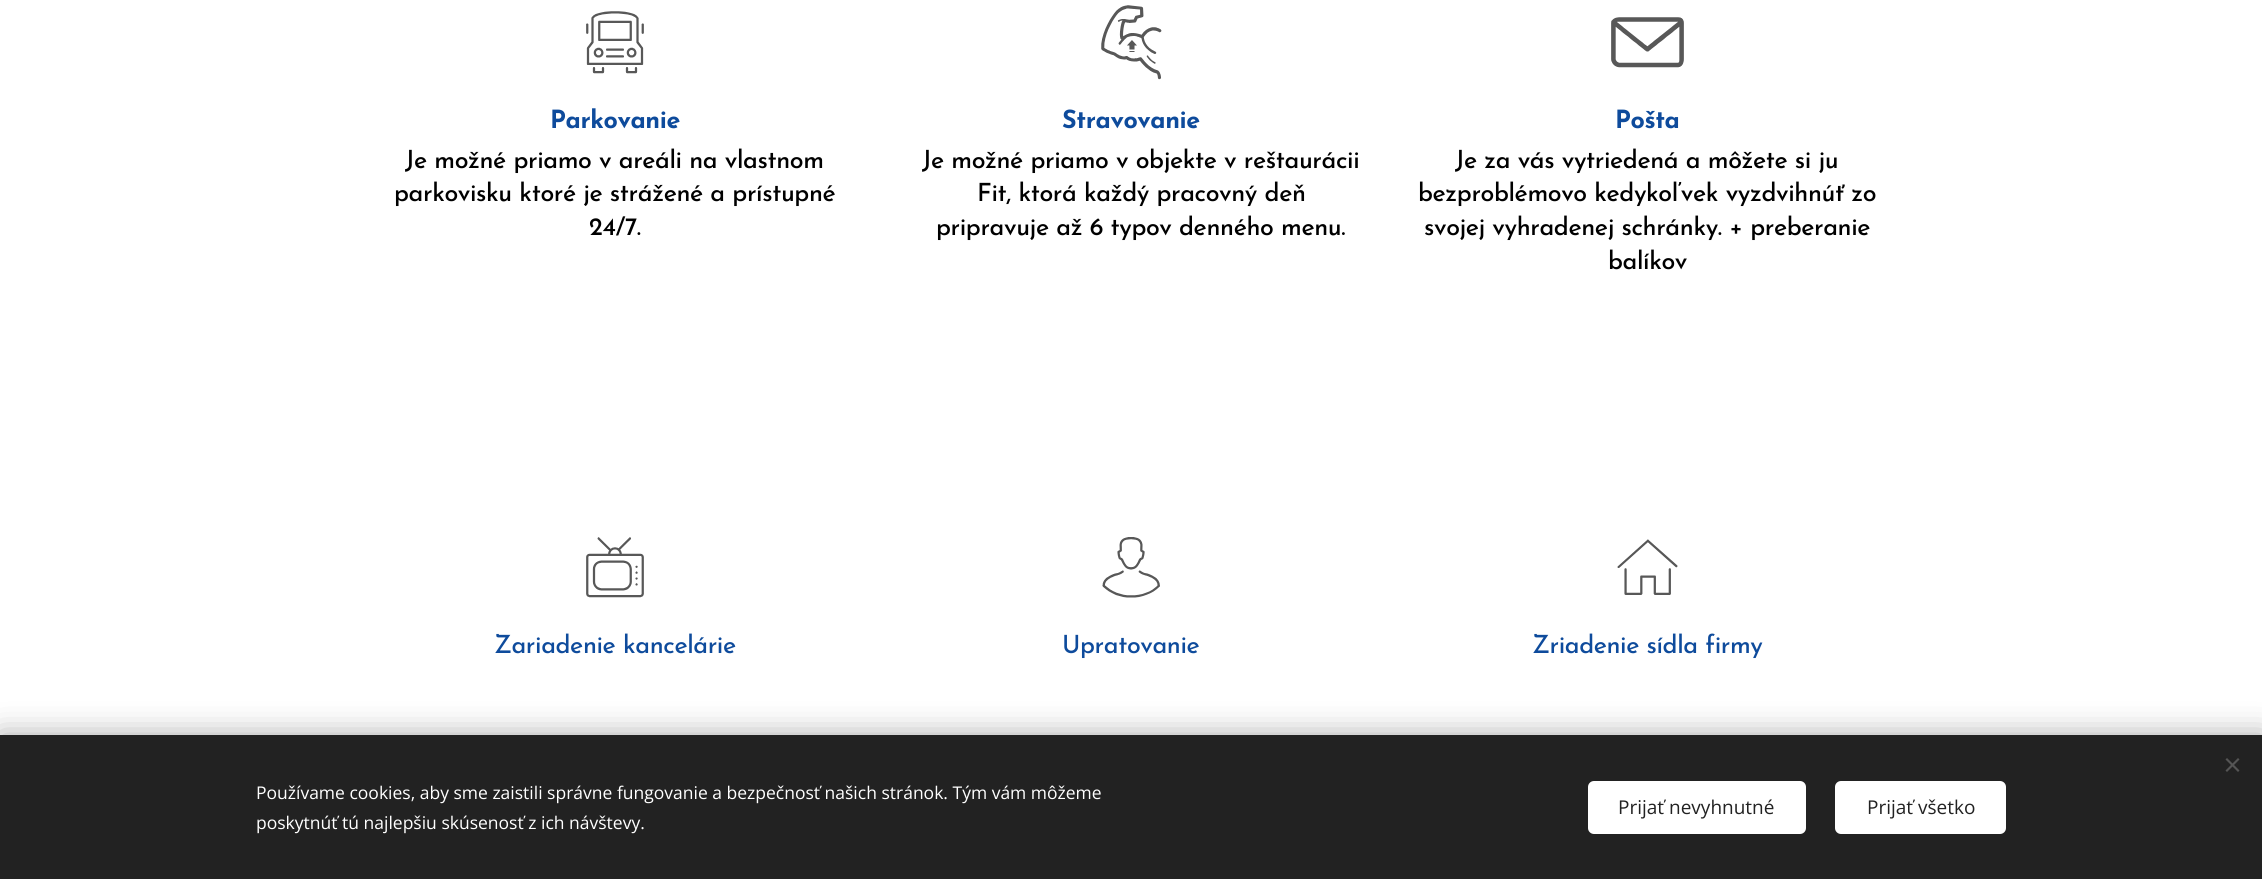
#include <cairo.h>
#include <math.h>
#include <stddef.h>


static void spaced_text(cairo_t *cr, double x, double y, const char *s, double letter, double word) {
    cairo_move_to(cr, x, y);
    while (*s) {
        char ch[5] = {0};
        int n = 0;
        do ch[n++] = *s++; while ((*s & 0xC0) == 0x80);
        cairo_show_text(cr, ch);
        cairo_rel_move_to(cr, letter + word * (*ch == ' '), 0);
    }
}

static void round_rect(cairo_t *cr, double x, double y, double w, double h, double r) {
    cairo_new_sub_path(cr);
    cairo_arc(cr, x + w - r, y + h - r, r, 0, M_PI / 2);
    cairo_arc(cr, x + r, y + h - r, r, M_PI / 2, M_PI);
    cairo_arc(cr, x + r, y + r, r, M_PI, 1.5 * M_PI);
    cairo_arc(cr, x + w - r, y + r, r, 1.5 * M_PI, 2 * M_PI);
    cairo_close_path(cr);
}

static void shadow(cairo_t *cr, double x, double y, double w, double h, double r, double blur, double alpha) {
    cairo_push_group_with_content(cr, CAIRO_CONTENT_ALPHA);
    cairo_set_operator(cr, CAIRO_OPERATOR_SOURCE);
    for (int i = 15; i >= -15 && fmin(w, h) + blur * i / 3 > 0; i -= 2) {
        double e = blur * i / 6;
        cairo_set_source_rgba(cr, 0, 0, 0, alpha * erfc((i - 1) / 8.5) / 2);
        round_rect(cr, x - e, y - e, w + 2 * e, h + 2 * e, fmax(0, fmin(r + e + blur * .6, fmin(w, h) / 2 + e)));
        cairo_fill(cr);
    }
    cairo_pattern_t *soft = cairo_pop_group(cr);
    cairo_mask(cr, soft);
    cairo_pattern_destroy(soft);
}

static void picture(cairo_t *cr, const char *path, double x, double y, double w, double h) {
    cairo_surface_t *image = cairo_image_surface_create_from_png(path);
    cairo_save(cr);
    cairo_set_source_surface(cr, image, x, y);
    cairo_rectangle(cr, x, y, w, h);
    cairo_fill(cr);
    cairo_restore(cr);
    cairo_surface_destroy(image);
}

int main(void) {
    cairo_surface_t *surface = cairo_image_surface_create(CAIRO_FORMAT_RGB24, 2262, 879);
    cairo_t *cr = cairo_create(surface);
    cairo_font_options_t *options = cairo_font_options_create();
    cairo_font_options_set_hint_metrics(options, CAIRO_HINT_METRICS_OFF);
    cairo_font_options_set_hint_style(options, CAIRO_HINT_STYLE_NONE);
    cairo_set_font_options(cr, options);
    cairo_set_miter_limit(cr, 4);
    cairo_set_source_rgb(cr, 1, 1, 1);
    cairo_paint(cr);
    picture(cr, "img1.png", 586, 11, 58, 63);
    cairo_select_font_face(cr, "Josefin Sans", CAIRO_FONT_SLANT_NORMAL, CAIRO_FONT_WEIGHT_BOLD);
    cairo_set_font_size(cr, 25);
    cairo_set_source_rgb(cr, 0.055, 0.294, 0.612);
    spaced_text(cr, 550, 128, "Parkovanie", -0.4, 0);
    cairo_select_font_face(cr, "Josefin Sans Medium", CAIRO_FONT_SLANT_NORMAL, CAIRO_FONT_WEIGHT_NORMAL);
    cairo_set_source_rgb(cr, 0, 0, 0);
    spaced_text(cr, 405, 168, "Je možné priamo v areáli na vlastnom", -0.4, 0);
    spaced_text(cr, 394, 201, "parkovisku ktoré je strážené a prístupné", -0.4, 0);
    spaced_text(cr, 589, 235, "24/7.", -0.4, 0);
    picture(cr, "img2.png", 1101, 5, 61, 75);
    cairo_select_font_face(cr, "Josefin Sans", CAIRO_FONT_SLANT_NORMAL, CAIRO_FONT_WEIGHT_BOLD);
    cairo_set_source_rgb(cr, 0.055, 0.294, 0.612);
    spaced_text(cr, 1062, 128, "Stravovanie", -0.4, 0);
    cairo_select_font_face(cr, "Josefin Sans Medium", CAIRO_FONT_SLANT_NORMAL, CAIRO_FONT_WEIGHT_NORMAL);
    cairo_set_source_rgb(cr, 0, 0, 0);
    spaced_text(cr, 922, 168, "Je možné priamo v objekte v reštaurácii", -0.4, 0);
    spaced_text(cr, 977, 201, "Fit, ktorá každý pracovný deň", -0.4, 0);
    spaced_text(cr, 936, 235, "pripravuje až 6 typov denného menu.", -0.4, 0);
    picture(cr, "img3.png", 1611, 17, 73, 51);
    cairo_select_font_face(cr, "Josefin Sans", CAIRO_FONT_SLANT_NORMAL, CAIRO_FONT_WEIGHT_BOLD);
    cairo_set_source_rgb(cr, 0.055, 0.294, 0.612);
    spaced_text(cr, 1615, 128, "Pošta", -0.4, 0);
    cairo_select_font_face(cr, "Josefin Sans Medium", CAIRO_FONT_SLANT_NORMAL, CAIRO_FONT_WEIGHT_NORMAL);
    cairo_set_source_rgb(cr, 0, 0, 0);
    spaced_text(cr, 1455, 168, "Je za vás vytriedená a môžete si ju", -0.4, 0);
    spaced_text(cr, 1418, 201, "bezproblémovo kedykoľvek vyzdvihnúť zo", -0.4, 0);
    spaced_text(cr, 1424, 235, "svojej vyhradenej schránky. + preberanie", -0.4, 0);
    spaced_text(cr, 1608, 269, "balíkov", -0.4, 0);
    picture(cr, "img4.png", 586, 537, 58, 61);
    cairo_set_source_rgb(cr, 0.055, 0.294, 0.612);
    spaced_text(cr, 494, 653, "Zariadenie kancelárie", -0.4, 0);
    picture(cr, "img5.png", 1102, 537, 58, 61);
    spaced_text(cr, 1062, 653, "Upratovanie", -0.4, 0);
    picture(cr, "img6.png", 1617, 539, 61, 56);
    spaced_text(cr, 1532, 653, "Zriadenie sídla firmy", -0.4, 0);
    cairo_set_source_rgb(cr, 0, 0, 0);
    shadow(cr, 0, 735, 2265, 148, 0, 15.5, 0.33);
    cairo_set_source_rgb(cr, 0.133, 0.133, 0.133);
    cairo_rectangle(cr, 0, 735, 2262, 144);
    cairo_fill(cr);
    cairo_set_source_rgb(cr, 0.333, 0.333, 0.333);
    cairo_new_path(cr);
    cairo_move_to(cr, 2225.5, 770.5);
    cairo_line_to(cr, 2238, 758);
    cairo_line_to(cr, 2239.5, 759.5);
    cairo_line_to(cr, 2227, 772);
    cairo_close_path(cr);
    cairo_fill(cr);
    cairo_new_path(cr);
    cairo_move_to(cr, 2227, 758);
    cairo_line_to(cr, 2239.5, 770.5);
    cairo_line_to(cr, 2238, 772);
    cairo_line_to(cr, 2225.5, 759.5);
    cairo_close_path(cr);
    cairo_fill(cr);
    cairo_select_font_face(cr, "Open Sans", CAIRO_FONT_SLANT_NORMAL, CAIRO_FONT_WEIGHT_NORMAL);
    cairo_set_font_size(cr, 17.5);
    cairo_set_source_rgb(cr, 1, 1, 1);
    cairo_move_to(cr, 256, 799);
    cairo_show_text(cr, "Používame cookies, aby sme zaistili správne fungovanie a bezpečnosť našich stránok. Tým vám môžeme");
    cairo_move_to(cr, 256, 829);
    cairo_show_text(cr, "poskytnúť tú najlepšiu skúsenosť z ich návštevy.");
    round_rect(cr, 1588, 781, 218, 53, 6);
    cairo_fill(cr);
    cairo_set_font_size(cr, 19);
    cairo_set_source_rgb(cr, 0.133, 0.133, 0.133);
    cairo_move_to(cr, 1618, 814);
    cairo_show_text(cr, "Prijať nevyhnutné");
    cairo_set_source_rgb(cr, 1, 1, 1);
    round_rect(cr, 1835, 781, 171, 53, 6);
    cairo_fill(cr);
    cairo_set_source_rgb(cr, 0.133, 0.133, 0.133);
    cairo_move_to(cr, 1867, 814);
    cairo_show_text(cr, "Prijať všetko");
    cairo_surface_write_to_png(surface, "page.png");
    cairo_font_options_destroy(options);
    cairo_destroy(cr);
    cairo_surface_destroy(surface);
    return 0;
}
